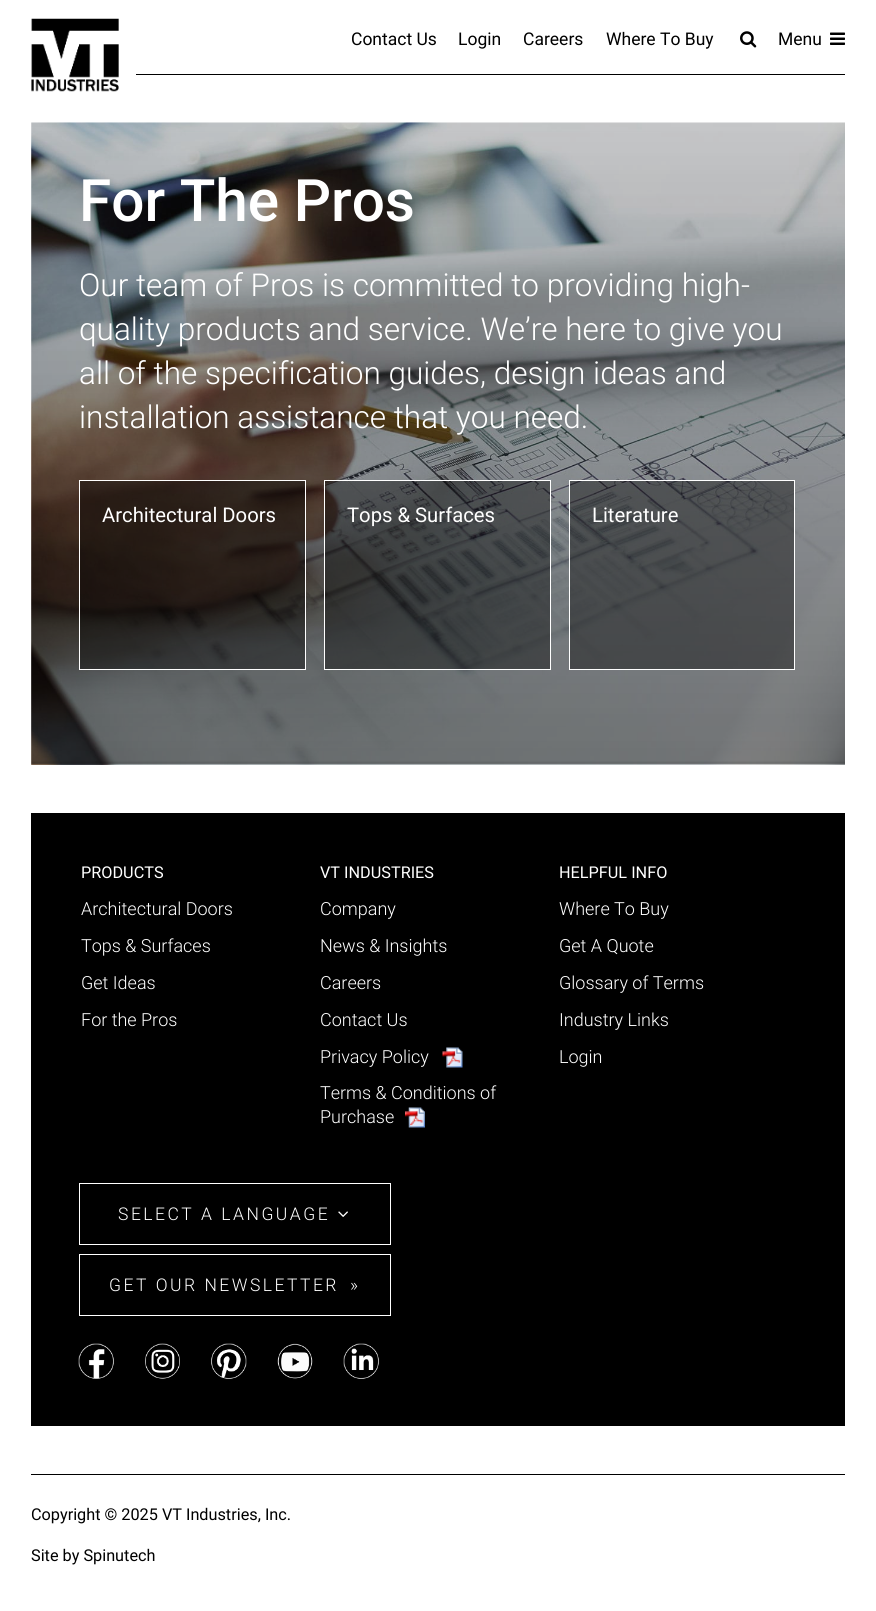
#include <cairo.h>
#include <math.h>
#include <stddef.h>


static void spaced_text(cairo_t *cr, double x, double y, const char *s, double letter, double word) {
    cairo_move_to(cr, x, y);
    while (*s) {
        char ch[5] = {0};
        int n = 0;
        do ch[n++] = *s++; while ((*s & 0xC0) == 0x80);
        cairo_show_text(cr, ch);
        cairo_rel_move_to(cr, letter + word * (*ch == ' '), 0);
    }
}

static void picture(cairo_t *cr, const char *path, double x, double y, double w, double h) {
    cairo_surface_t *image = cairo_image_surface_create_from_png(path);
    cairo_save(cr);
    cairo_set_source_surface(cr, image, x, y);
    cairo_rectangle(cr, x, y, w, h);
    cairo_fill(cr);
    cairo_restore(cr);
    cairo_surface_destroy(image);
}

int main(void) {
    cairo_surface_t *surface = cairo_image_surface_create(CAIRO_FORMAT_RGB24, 876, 1611);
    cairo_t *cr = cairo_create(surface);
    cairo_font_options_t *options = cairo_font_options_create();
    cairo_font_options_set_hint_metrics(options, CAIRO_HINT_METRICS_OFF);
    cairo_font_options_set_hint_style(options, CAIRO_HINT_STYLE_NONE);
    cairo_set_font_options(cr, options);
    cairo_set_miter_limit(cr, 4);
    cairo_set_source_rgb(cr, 1, 1, 1);
    cairo_paint(cr);
    cairo_set_source_rgb(cr, 0, 0, 0);
    cairo_rectangle(cr, 136, 74, 709, 1);
    cairo_fill(cr);
    picture(cr, "img1.png", 31, 18, 88, 74);
    cairo_select_font_face(cr, "Roboto", CAIRO_FONT_SLANT_NORMAL, CAIRO_FONT_WEIGHT_NORMAL);
    cairo_set_font_size(cr, 17.5);
    cairo_move_to(cr, 351, 45);
    cairo_show_text(cr, "Contact Us");
    cairo_move_to(cr, 458, 45);
    cairo_show_text(cr, "Login");
    cairo_move_to(cr, 523, 45);
    cairo_show_text(cr, "Careers");
    cairo_move_to(cr, 606, 45);
    cairo_show_text(cr, "Where To Buy");
    picture(cr, "img2.png", 740, 31, 17, 17);
    cairo_move_to(cr, 778, 45);
    cairo_show_text(cr, "Menu");
    picture(cr, "img3.png", 830, 32, 15, 13);
    picture(cr, "img4.png", 31, 122, 814, 643);
    picture(cr, "img5.png", 31, 122, 814, 643);
    cairo_select_font_face(cr, "Roboto Medium", CAIRO_FONT_SLANT_NORMAL, CAIRO_FONT_WEIGHT_NORMAL);
    cairo_set_font_size(cr, 58.5);
    cairo_set_source_rgb(cr, 1, 1, 1);
    cairo_move_to(cr, 79, 221);
    cairo_show_text(cr, "For The Pros");
    cairo_select_font_face(cr, "Roboto Light", CAIRO_FONT_SLANT_NORMAL, CAIRO_FONT_WEIGHT_NORMAL);
    cairo_set_font_size(cr, 31.5);
    cairo_move_to(cr, 79, 296);
    cairo_show_text(cr, "Our team of Pros is committed to providing high-");
    cairo_move_to(cr, 79, 340);
    cairo_show_text(cr, "quality products and service. We’re here to give you");
    cairo_move_to(cr, 79, 384);
    cairo_show_text(cr, "all of the specification guides, design ideas and");
    cairo_move_to(cr, 79, 428);
    cairo_show_text(cr, "installation assistance that you need.");
    cairo_rectangle(cr, 79.5, 480.5, 226, 189);
    cairo_set_line_width(cr, 1);
    cairo_stroke(cr);
    cairo_set_source_rgba(cr, 0, 0, 0, 0.4);
    cairo_rectangle(cr, 80, 481, 225, 188);
    cairo_fill(cr);
    cairo_select_font_face(cr, "Roboto", CAIRO_FONT_SLANT_NORMAL, CAIRO_FONT_WEIGHT_NORMAL);
    cairo_set_font_size(cr, 20.25);
    cairo_set_source_rgb(cr, 1, 1, 1);
    cairo_move_to(cr, 102, 522);
    cairo_show_text(cr, "Architectural Doors");
    cairo_rectangle(cr, 324.5, 480.5, 226, 189);
    cairo_stroke(cr);
    cairo_set_source_rgba(cr, 0, 0, 0, 0.4);
    cairo_rectangle(cr, 325, 481, 225, 188);
    cairo_fill(cr);
    cairo_set_source_rgb(cr, 1, 1, 1);
    cairo_move_to(cr, 347, 522);
    cairo_show_text(cr, "Tops & Surfaces");
    cairo_rectangle(cr, 569.5, 480.5, 225, 189);
    cairo_stroke(cr);
    cairo_set_source_rgba(cr, 0, 0, 0, 0.4);
    cairo_rectangle(cr, 570, 481, 224, 188);
    cairo_fill(cr);
    cairo_set_source_rgb(cr, 1, 1, 1);
    cairo_move_to(cr, 592, 522);
    cairo_show_text(cr, "Literature");
    cairo_set_source_rgb(cr, 0, 0, 0);
    cairo_rectangle(cr, 31, 813, 814, 613);
    cairo_fill(cr);
    cairo_set_font_size(cr, 16.25);
    cairo_set_source_rgb(cr, 1, 1, 1);
    cairo_move_to(cr, 81, 878);
    cairo_show_text(cr, "PRODUCTS");
    cairo_select_font_face(cr, "Roboto Light", CAIRO_FONT_SLANT_NORMAL, CAIRO_FONT_WEIGHT_NORMAL);
    cairo_set_font_size(cr, 18);
    cairo_move_to(cr, 81, 915);
    cairo_show_text(cr, "Architectural Doors");
    cairo_move_to(cr, 81, 952);
    cairo_show_text(cr, "Tops & Surfaces");
    cairo_move_to(cr, 81, 989);
    cairo_show_text(cr, "Get Ideas");
    cairo_move_to(cr, 81, 1026);
    cairo_show_text(cr, "For the Pros");
    cairo_select_font_face(cr, "Roboto", CAIRO_FONT_SLANT_NORMAL, CAIRO_FONT_WEIGHT_NORMAL);
    cairo_set_font_size(cr, 16.25);
    cairo_move_to(cr, 320, 878);
    cairo_show_text(cr, "VT INDUSTRIES");
    cairo_select_font_face(cr, "Roboto Light", CAIRO_FONT_SLANT_NORMAL, CAIRO_FONT_WEIGHT_NORMAL);
    cairo_set_font_size(cr, 18);
    cairo_move_to(cr, 320, 915);
    cairo_show_text(cr, "Company");
    cairo_move_to(cr, 320, 952);
    cairo_show_text(cr, "News & Insights");
    cairo_move_to(cr, 320, 989);
    cairo_show_text(cr, "Careers");
    cairo_move_to(cr, 320, 1026);
    cairo_show_text(cr, "Contact Us");
    cairo_move_to(cr, 320, 1063);
    cairo_show_text(cr, "Privacy Policy");
    picture(cr, "img6.png", 442, 1047, 21, 21);
    cairo_move_to(cr, 320, 1099);
    cairo_show_text(cr, "Terms & Conditions of");
    cairo_move_to(cr, 320, 1123);
    cairo_show_text(cr, "Purchase");
    picture(cr, "img7.png", 405, 1107, 20, 21);
    cairo_select_font_face(cr, "Roboto", CAIRO_FONT_SLANT_NORMAL, CAIRO_FONT_WEIGHT_NORMAL);
    cairo_set_font_size(cr, 16.25);
    cairo_move_to(cr, 559, 878);
    cairo_show_text(cr, "HELPFUL INFO");
    cairo_select_font_face(cr, "Roboto Light", CAIRO_FONT_SLANT_NORMAL, CAIRO_FONT_WEIGHT_NORMAL);
    cairo_set_font_size(cr, 18);
    cairo_move_to(cr, 559, 915);
    cairo_show_text(cr, "Where To Buy");
    cairo_move_to(cr, 559, 952);
    cairo_show_text(cr, "Get A Quote");
    cairo_move_to(cr, 559, 989);
    cairo_show_text(cr, "Glossary of Terms");
    cairo_move_to(cr, 559, 1026);
    cairo_show_text(cr, "Industry Links");
    cairo_move_to(cr, 559, 1063);
    cairo_show_text(cr, "Login");
    cairo_rectangle(cr, 79.5, 1183.5, 311, 61);
    cairo_stroke(cr);
    cairo_set_font_size(cr, 17.5);
    spaced_text(cr, 118, 1220, "SELECT A LANGUAGE", 2.5, 0);
    picture(cr, "img8.png", 338, 1211, 10, 6);
    cairo_rectangle(cr, 79.5, 1254.5, 311, 61);
    cairo_stroke(cr);
    spaced_text(cr, 109, 1291, "GET OUR NEWSLETTER", 2.5, 0);
    spaced_text(cr, 350, 1291, "»", 2.5, 0);
    picture(cr, "img9.png", 78, 1343, 36, 36);
    picture(cr, "img10.png", 145, 1343, 35, 36);
    picture(cr, "img11.png", 211, 1343, 36, 36);
    picture(cr, "img12.png", 277, 1343, 36, 36);
    picture(cr, "img13.png", 343, 1343, 36, 36);
    cairo_set_source_rgb(cr, 0, 0, 0);
    cairo_rectangle(cr, 31, 1474, 814, 1);
    cairo_fill(cr);
    cairo_select_font_face(cr, "Roboto", CAIRO_FONT_SLANT_NORMAL, CAIRO_FONT_WEIGHT_NORMAL);
    cairo_set_font_size(cr, 16.25);
    cairo_move_to(cr, 31, 1520);
    cairo_show_text(cr, "Copyright © 2025 VT Industries, Inc.");
    cairo_move_to(cr, 31, 1561);
    cairo_show_text(cr, "Site by Spinutech");
    cairo_surface_write_to_png(surface, "page.png");
    cairo_font_options_destroy(options);
    cairo_destroy(cr);
    cairo_surface_destroy(surface);
    return 0;
}
